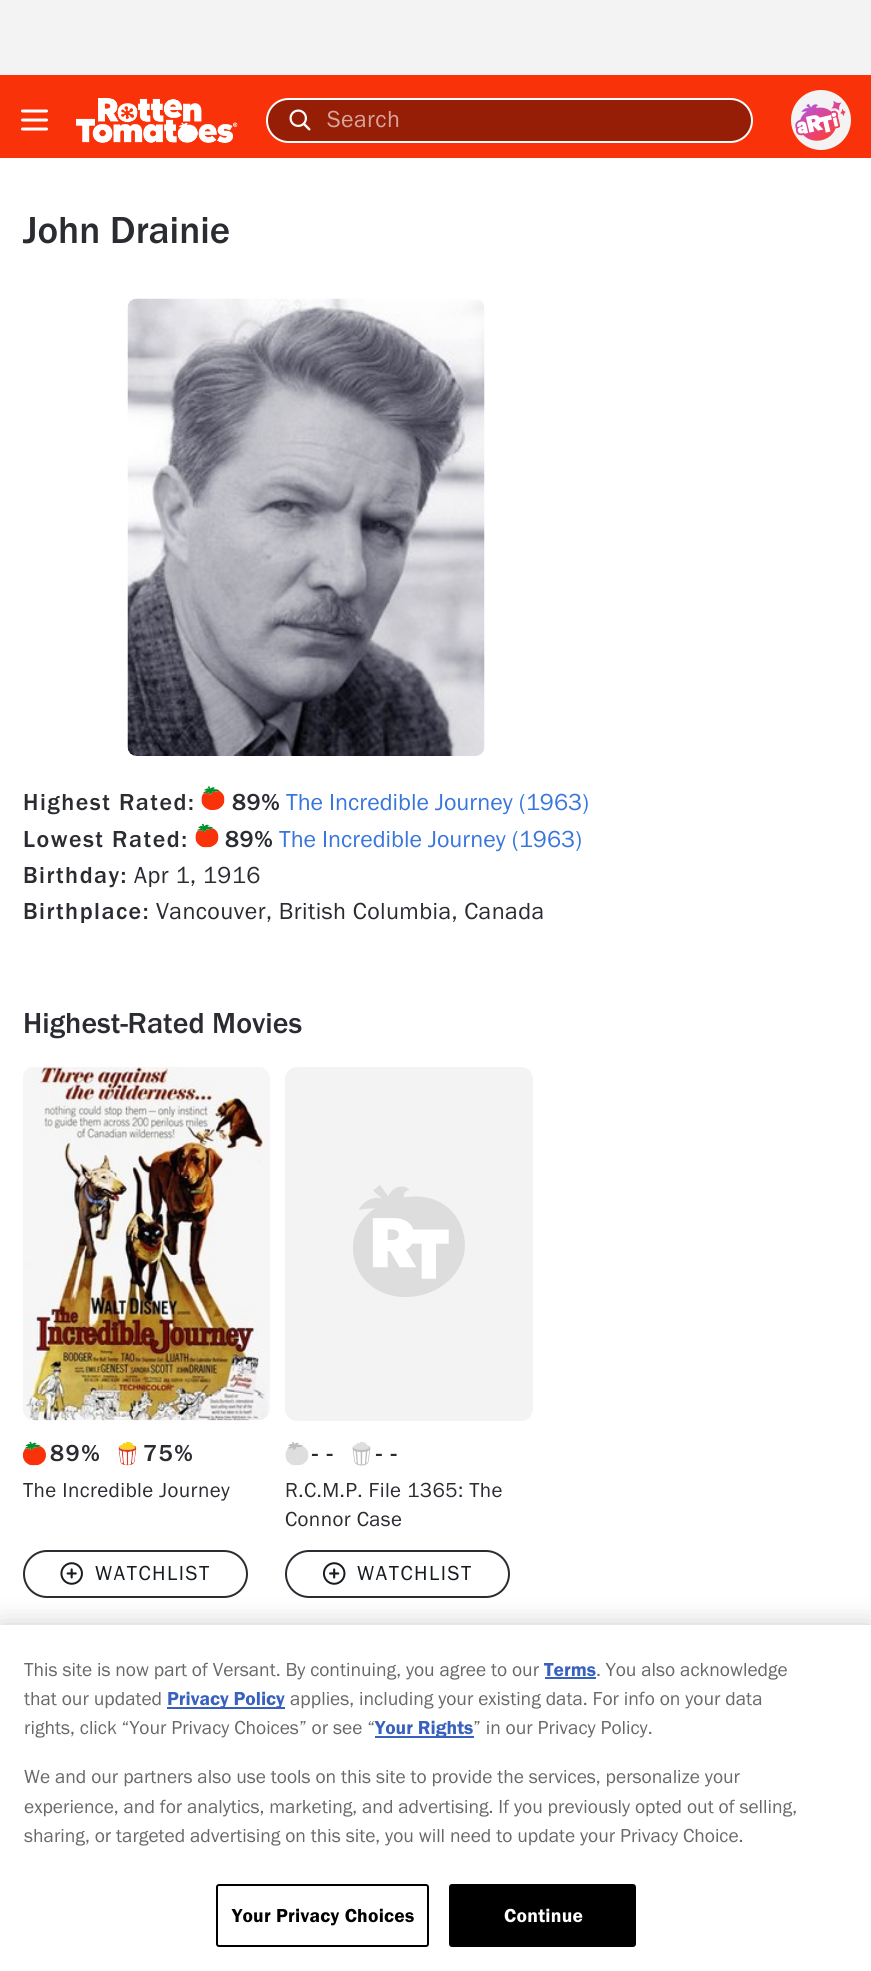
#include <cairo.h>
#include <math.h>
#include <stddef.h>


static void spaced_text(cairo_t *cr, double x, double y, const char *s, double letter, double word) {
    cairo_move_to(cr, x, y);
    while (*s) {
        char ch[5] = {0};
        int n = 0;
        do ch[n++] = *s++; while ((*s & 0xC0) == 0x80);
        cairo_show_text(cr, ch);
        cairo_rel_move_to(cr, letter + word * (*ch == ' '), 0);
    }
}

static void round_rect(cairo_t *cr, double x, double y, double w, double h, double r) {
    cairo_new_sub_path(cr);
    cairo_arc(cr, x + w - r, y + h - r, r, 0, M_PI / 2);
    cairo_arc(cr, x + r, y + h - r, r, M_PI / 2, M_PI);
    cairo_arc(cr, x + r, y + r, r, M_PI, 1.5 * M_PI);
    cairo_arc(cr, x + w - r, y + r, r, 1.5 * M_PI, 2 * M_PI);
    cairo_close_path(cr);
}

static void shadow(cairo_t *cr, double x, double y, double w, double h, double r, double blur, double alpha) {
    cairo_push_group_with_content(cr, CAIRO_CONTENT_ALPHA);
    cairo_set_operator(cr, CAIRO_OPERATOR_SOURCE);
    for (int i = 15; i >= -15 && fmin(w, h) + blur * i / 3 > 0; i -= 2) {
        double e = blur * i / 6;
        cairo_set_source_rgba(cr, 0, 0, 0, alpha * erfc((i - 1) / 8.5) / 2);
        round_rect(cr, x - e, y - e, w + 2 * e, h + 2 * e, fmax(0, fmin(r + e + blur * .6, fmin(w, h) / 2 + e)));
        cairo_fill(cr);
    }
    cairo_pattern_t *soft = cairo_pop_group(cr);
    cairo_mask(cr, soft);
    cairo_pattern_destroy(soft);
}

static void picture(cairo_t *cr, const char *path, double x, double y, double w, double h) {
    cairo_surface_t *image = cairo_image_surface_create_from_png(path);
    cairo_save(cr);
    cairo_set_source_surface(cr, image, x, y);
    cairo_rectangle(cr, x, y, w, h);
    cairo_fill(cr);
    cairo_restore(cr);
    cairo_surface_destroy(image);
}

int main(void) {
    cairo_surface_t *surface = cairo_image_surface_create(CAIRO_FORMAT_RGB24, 871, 1971);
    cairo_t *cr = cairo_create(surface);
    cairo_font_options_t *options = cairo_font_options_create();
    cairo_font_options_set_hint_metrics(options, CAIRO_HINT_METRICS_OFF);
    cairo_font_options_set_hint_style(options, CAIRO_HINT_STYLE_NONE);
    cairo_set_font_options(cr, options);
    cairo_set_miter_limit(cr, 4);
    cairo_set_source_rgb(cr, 0.953, 0.953, 0.953);
    cairo_paint(cr);
    cairo_set_source_rgb(cr, 0.98, 0.196, 0.039);
    cairo_rectangle(cr, 0, 75, 871, 83);
    cairo_fill(cr);
    picture(cr, "img1.png", 21, 109, 27, 22);
    picture(cr, "img2.png", 76, 98, 162, 45);
    cairo_set_source_rgb(cr, 0.588, 0.118, 0.024);
    round_rect(cr, 267, 99, 485, 43, 21.5);
    cairo_fill_preserve(cr);
    cairo_set_source_rgb(cr, 1, 1, 1);
    cairo_stroke(cr);
    picture(cr, "img3.png", 289, 109, 22, 22);
    cairo_select_font_face(cr, "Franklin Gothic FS", CAIRO_FONT_SLANT_NORMAL, CAIRO_FONT_WEIGHT_NORMAL);
    cairo_set_font_size(cr, 24);
    cairo_set_source_rgb(cr, 0.835, 0.647, 0.608);
    spaced_text(cr, 327, 127, "Search", 0.4, 0);
    cairo_set_source_rgb(cr, 0.953, 0.953, 0.953);
    cairo_new_path(cr);
    cairo_arc(cr, 821, 120, 31.5, 0, 2 * M_PI);
    cairo_fill_preserve(cr);
    cairo_set_source_rgb(cr, 0.98, 0.196, 0.039);
    cairo_set_line_width(cr, 3);
    cairo_stroke(cr);
    picture(cr, "img4.png", 795, 100, 51, 41);
    cairo_set_source_rgb(cr, 1, 1, 1);
    cairo_rectangle(cr, 0, 158, 871, 1467);
    cairo_fill(cr);
    cairo_save(cr);
    cairo_rectangle(cr, 23, 158, 826, 811);
    cairo_clip(cr);
    cairo_select_font_face(cr, "Franklin Gothic FS Medium", CAIRO_FONT_SLANT_NORMAL, CAIRO_FONT_WEIGHT_NORMAL);
    cairo_set_font_size(cr, 39);
    cairo_set_source_rgb(cr, 0.165, 0.173, 0.196);
    cairo_move_to(cr, 23, 243);
    cairo_show_text(cr, "John Drainie");
    cairo_restore(cr);
    picture(cr, "img5.png", 127, 298, 358, 458);
    cairo_select_font_face(cr, "Franklin Gothic FS Medium", CAIRO_FONT_SLANT_NORMAL, CAIRO_FONT_WEIGHT_NORMAL);
    cairo_set_source_rgb(cr, 0.165, 0.173, 0.196);
    spaced_text(cr, 23, 810, "Highest Rated:", 1.5, 0);
    picture(cr, "img6.png", 201, 786, 24, 24);
    spaced_text(cr, 232, 810, "89%", 0.5, 0);
    cairo_select_font_face(cr, "Franklin Gothic FS", CAIRO_FONT_SLANT_NORMAL, CAIRO_FONT_WEIGHT_NORMAL);
    cairo_set_source_rgb(cr, 0.224, 0.463, 0.863);
    cairo_move_to(cr, 286, 810);
    cairo_show_text(cr, "The Incredible Journey (1963)");
    cairo_select_font_face(cr, "Franklin Gothic FS Medium", CAIRO_FONT_SLANT_NORMAL, CAIRO_FONT_WEIGHT_NORMAL);
    cairo_set_source_rgb(cr, 0.165, 0.173, 0.196);
    spaced_text(cr, 23, 847, "Lowest Rated:", 1.5, 0);
    picture(cr, "img7.png", 195, 823, 24, 25);
    spaced_text(cr, 225, 847, "89%", 0.5, 0);
    cairo_select_font_face(cr, "Franklin Gothic FS", CAIRO_FONT_SLANT_NORMAL, CAIRO_FONT_WEIGHT_NORMAL);
    cairo_set_source_rgb(cr, 0.224, 0.463, 0.863);
    cairo_move_to(cr, 279, 847);
    cairo_show_text(cr, "The Incredible Journey (1963)");
    cairo_select_font_face(cr, "Franklin Gothic FS Medium", CAIRO_FONT_SLANT_NORMAL, CAIRO_FONT_WEIGHT_NORMAL);
    cairo_set_source_rgb(cr, 0.165, 0.173, 0.196);
    spaced_text(cr, 23, 883, "Birthday:", 1.5, 0);
    cairo_select_font_face(cr, "Franklin Gothic FS", CAIRO_FONT_SLANT_NORMAL, CAIRO_FONT_WEIGHT_NORMAL);
    spaced_text(cr, 134, 883, "Apr 1, 1916", 0.4, 0);
    cairo_select_font_face(cr, "Franklin Gothic FS Medium", CAIRO_FONT_SLANT_NORMAL, CAIRO_FONT_WEIGHT_NORMAL);
    spaced_text(cr, 23, 919, "Birthplace:", 1.5, 0);
    cairo_select_font_face(cr, "Franklin Gothic FS", CAIRO_FONT_SLANT_NORMAL, CAIRO_FONT_WEIGHT_NORMAL);
    spaced_text(cr, 156, 919, "Vancouver, British Columbia, Canada", 0.4, 0);
    cairo_select_font_face(cr, "Franklin Gothic FS Medium", CAIRO_FONT_SLANT_NORMAL, CAIRO_FONT_WEIGHT_NORMAL);
    cairo_set_font_size(cr, 30);
    cairo_move_to(cr, 23, 1033);
    cairo_show_text(cr, "Highest-Rated Movies");
    picture(cr, "img8.png", 23, 1067, 247, 354);
    picture(cr, "img9.png", 23, 1441, 23, 25);
    cairo_set_font_size(cr, 24);
    spaced_text(cr, 50, 1461, "89%", 1.5, 0);
    picture(cr, "img10.png", 118, 1441, 19, 25);
    spaced_text(cr, 143, 1461, "75%", 1.5, 0);
    cairo_select_font_face(cr, "Franklin Gothic FS", CAIRO_FONT_SLANT_NORMAL, CAIRO_FONT_WEIGHT_NORMAL);
    cairo_set_font_size(cr, 21);
    spaced_text(cr, 23, 1497, "The Incredible Journey", 0.4, 0);
    round_rect(cr, 24, 1551, 223, 46, 23);
    cairo_set_line_width(cr, 2);
    cairo_stroke(cr);
    picture(cr, "img11.png", 60, 1562, 23, 23);
    cairo_set_source_rgb(cr, 0.09, 0.11, 0.125);
    spaced_text(cr, 95, 1580, "WATCHLIST", 1.5, 0);
    cairo_set_source_rgb(cr, 0.953, 0.953, 0.953);
    round_rect(cr, 285, 1067, 248, 354, 12);
    cairo_fill(cr);
    picture(cr, "img12.png", 353, 1185, 112, 112);
    picture(cr, "img13.png", 285, 1441, 24, 25);
    cairo_select_font_face(cr, "Franklin Gothic FS Medium", CAIRO_FONT_SLANT_NORMAL, CAIRO_FONT_WEIGHT_NORMAL);
    cairo_set_font_size(cr, 24);
    cairo_set_source_rgb(cr, 0.165, 0.173, 0.196);
    spaced_text(cr, 312, 1461, "- -", 1.5, 0);
    picture(cr, "img14.png", 352, 1442, 19, 24);
    spaced_text(cr, 376, 1461, "- -", 1.5, 0);
    cairo_select_font_face(cr, "Franklin Gothic FS", CAIRO_FONT_SLANT_NORMAL, CAIRO_FONT_WEIGHT_NORMAL);
    cairo_set_font_size(cr, 21);
    spaced_text(cr, 285, 1497, "R.C.M.P. File 1365: The", 0.4, 0);
    spaced_text(cr, 285, 1526, "Connor Case", 0.4, 0);
    round_rect(cr, 286, 1551, 223, 46, 23);
    cairo_stroke(cr);
    picture(cr, "img15.png", 323, 1562, 23, 23);
    cairo_set_source_rgb(cr, 0.09, 0.11, 0.125);
    spaced_text(cr, 357, 1580, "WATCHLIST", 1.5, 0);
    cairo_set_source_rgb(cr, 0, 0, 0);
    shadow(cr, 0, 1625, 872, 346, 0, 13.5, 0.2);
    cairo_set_source_rgb(cr, 1, 1, 1);
    cairo_rectangle(cr, 0, 1625, 871, 346);
    cairo_fill(cr);
    cairo_set_font_size(cr, 19.5);
    cairo_set_source_rgb(cr, 0.412, 0.412, 0.412);
    cairo_move_to(cr, 24, 1676);
    cairo_show_text(cr, "This site is now part of Versant. By continuing, you agree to our");
    cairo_select_font_face(cr, "Franklin Gothic FS SemiBold", CAIRO_FONT_SLANT_NORMAL, CAIRO_FONT_WEIGHT_NORMAL);
    cairo_set_source_rgb(cr, 0.22, 0.376, 0.745);
    cairo_move_to(cr, 544, 1676);
    cairo_show_text(cr, "Terms");
    cairo_rectangle(cr, 545, 1677, 51, 2);
    cairo_fill(cr);
    cairo_select_font_face(cr, "Franklin Gothic FS", CAIRO_FONT_SLANT_NORMAL, CAIRO_FONT_WEIGHT_NORMAL);
    cairo_set_source_rgb(cr, 0.412, 0.412, 0.412);
    cairo_move_to(cr, 596, 1676);
    cairo_show_text(cr, ". You also acknowledge");
    cairo_move_to(cr, 24, 1705);
    cairo_show_text(cr, "that our updated");
    cairo_set_source_rgb(cr, 0.22, 0.376, 0.745);
    cairo_rectangle(cr, 167, 1707, 118, 2);
    cairo_fill(cr);
    cairo_select_font_face(cr, "Franklin Gothic FS SemiBold", CAIRO_FONT_SLANT_NORMAL, CAIRO_FONT_WEIGHT_NORMAL);
    cairo_move_to(cr, 167, 1705);
    cairo_show_text(cr, "Privacy Policy");
    cairo_select_font_face(cr, "Franklin Gothic FS", CAIRO_FONT_SLANT_NORMAL, CAIRO_FONT_WEIGHT_NORMAL);
    cairo_set_source_rgb(cr, 0.412, 0.412, 0.412);
    cairo_move_to(cr, 290, 1705);
    cairo_show_text(cr, "applies, including your existing data. For info on your data");
    cairo_move_to(cr, 24, 1734);
    cairo_show_text(cr, "rights, click “Your Privacy Choices” or see “");
    cairo_set_source_rgb(cr, 0.22, 0.376, 0.745);
    cairo_rectangle(cr, 375, 1736, 99, 2);
    cairo_fill(cr);
    cairo_select_font_face(cr, "Franklin Gothic FS SemiBold", CAIRO_FONT_SLANT_NORMAL, CAIRO_FONT_WEIGHT_NORMAL);
    cairo_move_to(cr, 375, 1734);
    cairo_show_text(cr, "Your Rights");
    cairo_select_font_face(cr, "Franklin Gothic FS", CAIRO_FONT_SLANT_NORMAL, CAIRO_FONT_WEIGHT_NORMAL);
    cairo_set_source_rgb(cr, 0.412, 0.412, 0.412);
    cairo_move_to(cr, 473, 1734);
    cairo_show_text(cr, "” in our Privacy Policy.");
    cairo_move_to(cr, 24, 1783);
    cairo_show_text(cr, "We and our partners also use tools on this site to provide the services, personalize your");
    cairo_move_to(cr, 24, 1813);
    cairo_show_text(cr, "experience, and for analytics, marketing, and advertising. If you previously opted out of selling,");
    cairo_move_to(cr, 24, 1842);
    cairo_show_text(cr, "sharing, or targeted advertising on this site, you will need to update your Privacy Choice.");
    round_rect(cr, 217, 1885, 211, 61, 2);
    cairo_set_source_rgb(cr, 0, 0, 0);
    cairo_stroke(cr);
    cairo_select_font_face(cr, "Franklin Gothic FS SemiBold", CAIRO_FONT_SLANT_NORMAL, CAIRO_FONT_WEIGHT_NORMAL);
    spaced_text(cr, 232, 1922, "Your Privacy Choices", 0.25, 0);
    round_rect(cr, 450, 1885, 185, 61, 2);
    cairo_fill_preserve(cr);
    cairo_stroke(cr);
    cairo_set_source_rgb(cr, 1, 1, 1);
    spaced_text(cr, 504, 1922, "Continue", 0.25, 0);
    cairo_surface_write_to_png(surface, "page.png");
    cairo_font_options_destroy(options);
    cairo_destroy(cr);
    cairo_surface_destroy(surface);
    return 0;
}
